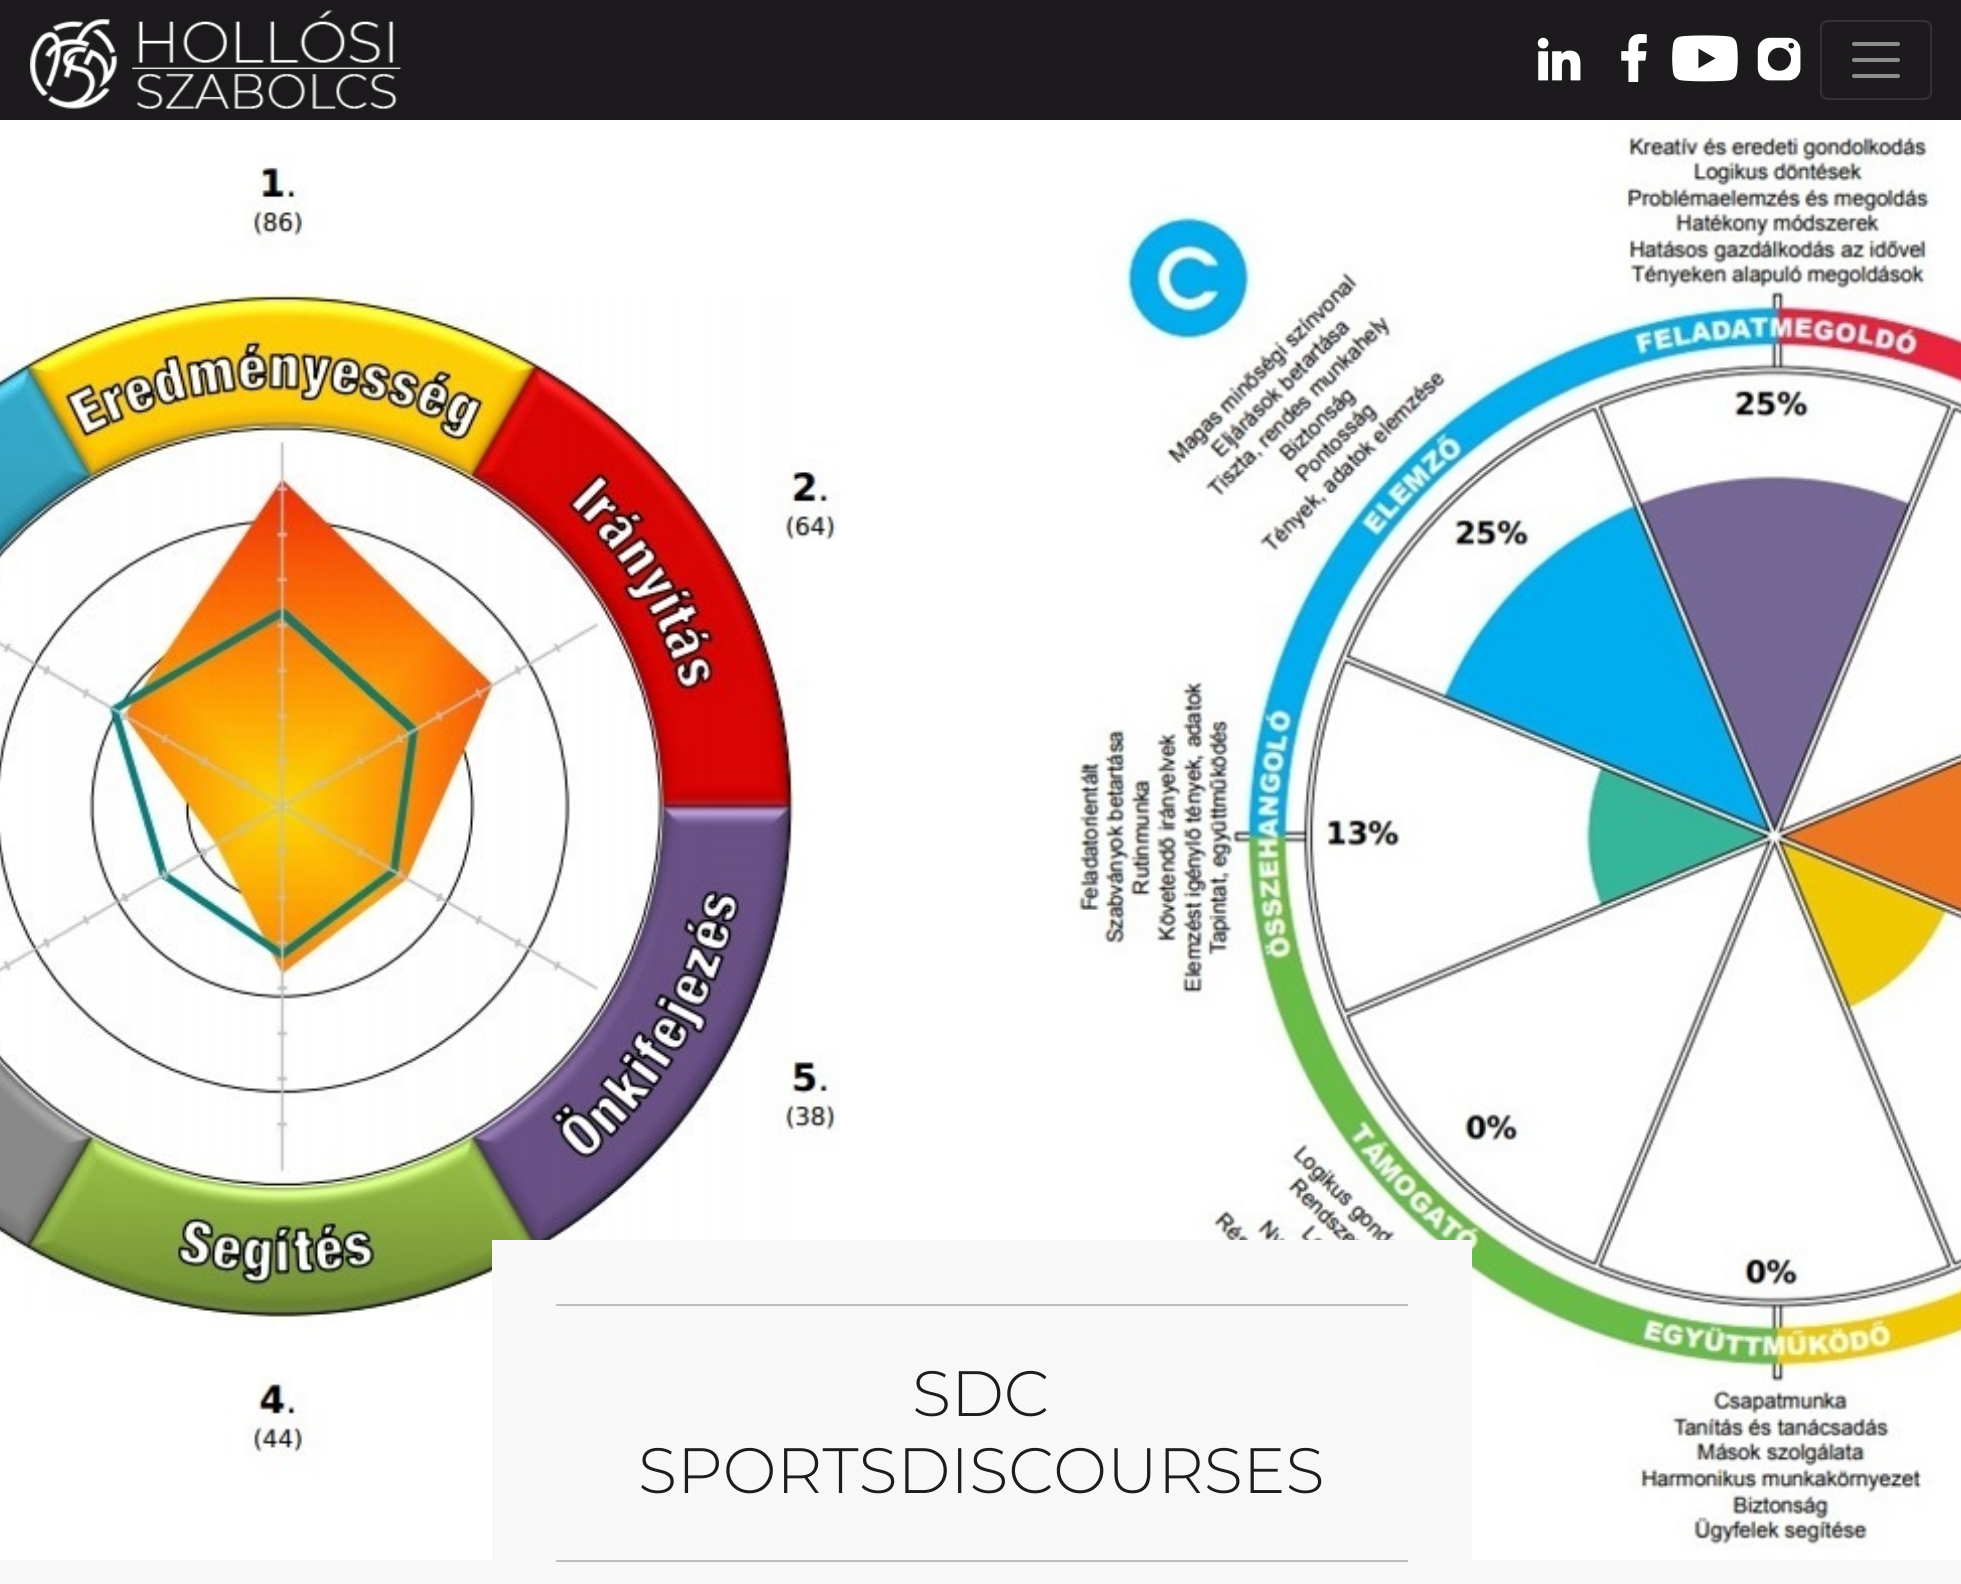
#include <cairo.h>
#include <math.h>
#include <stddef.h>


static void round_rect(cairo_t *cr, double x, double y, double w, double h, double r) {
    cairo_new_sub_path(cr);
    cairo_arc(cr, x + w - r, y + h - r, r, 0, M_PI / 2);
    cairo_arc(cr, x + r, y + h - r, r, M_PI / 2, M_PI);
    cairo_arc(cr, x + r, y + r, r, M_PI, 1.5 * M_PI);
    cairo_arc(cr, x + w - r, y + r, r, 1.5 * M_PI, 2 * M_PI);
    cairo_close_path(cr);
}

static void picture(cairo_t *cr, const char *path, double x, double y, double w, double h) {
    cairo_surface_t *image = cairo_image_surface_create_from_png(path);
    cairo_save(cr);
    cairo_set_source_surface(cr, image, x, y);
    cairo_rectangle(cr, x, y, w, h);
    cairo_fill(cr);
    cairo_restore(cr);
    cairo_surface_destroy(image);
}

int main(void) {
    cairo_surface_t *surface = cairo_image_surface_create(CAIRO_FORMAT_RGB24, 1961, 1584);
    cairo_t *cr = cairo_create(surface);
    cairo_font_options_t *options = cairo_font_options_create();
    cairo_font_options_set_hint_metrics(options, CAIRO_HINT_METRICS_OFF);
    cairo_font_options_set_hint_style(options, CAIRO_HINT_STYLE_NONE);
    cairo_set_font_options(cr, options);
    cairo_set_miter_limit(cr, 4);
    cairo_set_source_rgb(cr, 0.969, 0.969, 0.969);
    cairo_paint(cr);
    cairo_set_source_rgb(cr, 0.11, 0.102, 0.114);
    cairo_rectangle(cr, 0, 0, 1961, 120);
    cairo_fill(cr);
    picture(cr, "img1.png", 30, 10, 372, 99);
    picture(cr, "img2.png", 1537, 37, 44, 44);
    picture(cr, "img3.png", 1621, 34, 26, 48);
    picture(cr, "img4.png", 1672, 35, 66, 47);
    picture(cr, "img5.png", 1757, 37, 44, 44);
    round_rect(cr, 1821, 21, 110, 78, 7);
    cairo_set_source_rgb(cr, 0.2, 0.192, 0.204);
    cairo_stroke(cr);
    cairo_new_path(cr);
    cairo_move_to(cr, 1854, 44);
    cairo_line_to(cr, 1898, 44);
    cairo_move_to(cr, 1854, 60);
    cairo_line_to(cr, 1898, 60);
    cairo_move_to(cr, 1854, 76);
    cairo_line_to(cr, 1898, 76);
    cairo_set_source_rgb(cr, 0.557, 0.553, 0.557);
    cairo_set_line_width(cr, 4);
    cairo_set_line_cap(cr, CAIRO_LINE_CAP_ROUND);
    cairo_stroke(cr);
    picture(cr, "img6.png", 0, 120, 1961, 1440);
    cairo_set_source_rgb(cr, 0.969, 0.969, 0.969);
    cairo_rectangle(cr, 492, 1240, 980, 320);
    cairo_fill(cr);
    cairo_set_source_rgb(cr, 0.745, 0.745, 0.745);
    cairo_rectangle(cr, 556, 1304, 852, 2);
    cairo_fill(cr);
    cairo_rectangle(cr, 556, 1560, 852, 2);
    cairo_fill(cr);
    cairo_select_font_face(cr, "Montserrat Light", CAIRO_FONT_SLANT_NORMAL, CAIRO_FONT_WEIGHT_NORMAL);
    cairo_set_font_size(cr, 64);
    cairo_set_source_rgb(cr, 0.114, 0.114, 0.114);
    cairo_move_to(cr, 912, 1416);
    cairo_show_text(cr, "SDC");
    cairo_move_to(cr, 638, 1493);
    cairo_show_text(cr, "SPORTSDISCOURSES");
    cairo_surface_write_to_png(surface, "page.png");
    cairo_font_options_destroy(options);
    cairo_destroy(cr);
    cairo_surface_destroy(surface);
    return 0;
}
